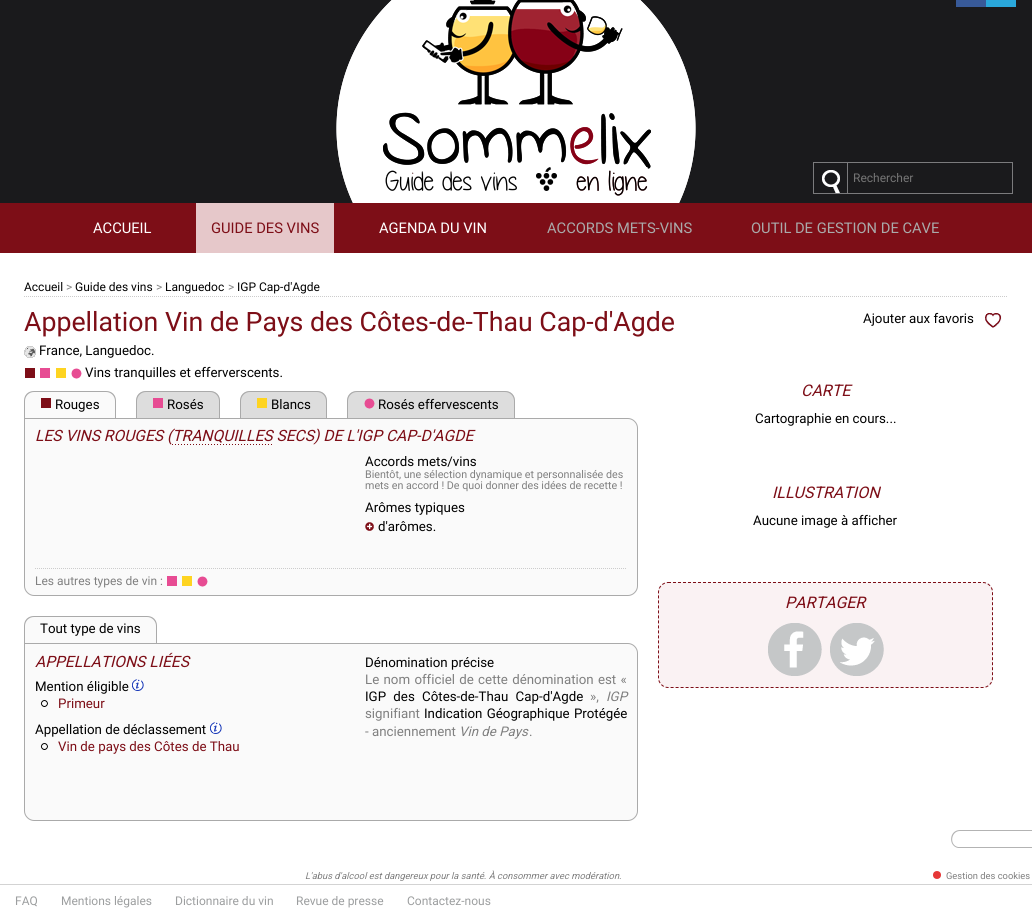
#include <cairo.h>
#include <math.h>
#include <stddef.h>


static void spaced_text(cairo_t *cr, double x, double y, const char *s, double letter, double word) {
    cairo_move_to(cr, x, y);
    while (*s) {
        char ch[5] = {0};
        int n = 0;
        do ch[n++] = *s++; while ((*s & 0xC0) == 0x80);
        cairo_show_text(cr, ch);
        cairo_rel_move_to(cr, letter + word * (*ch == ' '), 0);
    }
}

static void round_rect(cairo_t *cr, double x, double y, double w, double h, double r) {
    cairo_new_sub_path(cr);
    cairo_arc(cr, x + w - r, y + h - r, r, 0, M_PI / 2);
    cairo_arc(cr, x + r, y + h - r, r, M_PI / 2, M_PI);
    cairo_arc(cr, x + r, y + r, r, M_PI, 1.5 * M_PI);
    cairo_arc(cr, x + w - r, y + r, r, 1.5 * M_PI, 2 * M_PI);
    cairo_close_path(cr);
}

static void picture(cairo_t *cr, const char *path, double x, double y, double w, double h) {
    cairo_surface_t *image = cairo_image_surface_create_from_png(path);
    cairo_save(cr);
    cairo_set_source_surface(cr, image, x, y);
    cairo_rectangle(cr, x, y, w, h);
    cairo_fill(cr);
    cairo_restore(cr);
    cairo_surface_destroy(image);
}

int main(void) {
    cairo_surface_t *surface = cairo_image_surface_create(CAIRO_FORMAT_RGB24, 1032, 911);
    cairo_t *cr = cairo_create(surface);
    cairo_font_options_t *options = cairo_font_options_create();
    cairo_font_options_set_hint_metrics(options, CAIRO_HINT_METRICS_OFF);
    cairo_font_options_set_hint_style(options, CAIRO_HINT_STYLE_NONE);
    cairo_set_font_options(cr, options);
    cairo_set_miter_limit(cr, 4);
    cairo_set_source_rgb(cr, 1, 1, 1);
    cairo_paint(cr);
    cairo_set_source_rgb(cr, 0.102, 0.102, 0.11);
    cairo_rectangle(cr, 0, 0, 1032, 203);
    cairo_fill(cr);
    picture(cr, "img1.png", 336, 0, 360, 203);
    picture(cr, "img2.png", 336, 0, 360, 203);
    picture(cr, "img5.png", 412, 171, 40, 3);
    picture(cr, "img3.png", 383, 0, 268, 193);
    picture(cr, "img4.png", 536, 167, 112, 29);
    picture(cr, "img6.png", 536, 167, 112, 29);
    cairo_set_source_rgb(cr, 0.22, 0.353, 0.6);
    cairo_rectangle(cr, 956, 0, 30, 7);
    cairo_fill(cr);
    cairo_set_source_rgb(cr, 0.165, 0.659, 0.859);
    cairo_rectangle(cr, 986, 0, 30, 7);
    cairo_fill(cr);
    picture(cr, "img7.png", 822, 170, 18, 23);
    cairo_rectangle(cr, 813.5, 162.5, 34, 31);
    cairo_set_source_rgb(cr, 0.482, 0.482, 0.49);
    cairo_set_line_width(cr, 1);
    cairo_stroke(cr);
    cairo_rectangle(cr, 848, 162, 165, 1);
    cairo_fill(cr);
    cairo_rectangle(cr, 1012, 162, 1, 32);
    cairo_fill(cr);
    cairo_rectangle(cr, 848, 193, 165, 1);
    cairo_fill(cr);
    cairo_select_font_face(cr, "Roboto", CAIRO_FONT_SLANT_NORMAL, CAIRO_FONT_WEIGHT_NORMAL);
    cairo_set_font_size(cr, 12);
    cairo_set_source_rgb(cr, 0.459, 0.459, 0.459);
    cairo_move_to(cr, 853, 182);
    cairo_show_text(cr, "Rechercher");
    cairo_set_source_rgb(cr, 0.49, 0.055, 0.09);
    cairo_rectangle(cr, 0, 203, 1032, 50);
    cairo_fill(cr);
    cairo_set_font_size(cr, 14.7);
    cairo_set_source_rgb(cr, 1, 1, 1);
    cairo_move_to(cr, 93, 233);
    cairo_show_text(cr, "ACCUEIL");
    cairo_set_source_rgb(cr, 0.902, 0.784, 0.792);
    cairo_rectangle(cr, 196, 203, 138, 50);
    cairo_fill(cr);
    cairo_set_source_rgb(cr, 0.49, 0.055, 0.09);
    cairo_move_to(cr, 211, 233);
    cairo_show_text(cr, "GUIDE DES VINS");
    cairo_set_source_rgb(cr, 1, 1, 1);
    cairo_move_to(cr, 379, 233);
    cairo_show_text(cr, "AGENDA DU VIN");
    cairo_set_source_rgb(cr, 0.667, 0.667, 0.667);
    cairo_move_to(cr, 547, 233);
    cairo_show_text(cr, "ACCORDS METS-VINS");
    cairo_move_to(cr, 751, 233);
    cairo_show_text(cr, "OUTIL DE GESTION DE CAVE");
    cairo_new_path(cr);
    cairo_move_to(cr, 24, 296.5);
    cairo_line_to(cr, 1008, 296.5);
    cairo_set_source_rgb(cr, 0.8, 0.8, 0.8);
    cairo_set_dash(cr, (double[]){1, 1}, 2, 0);
    cairo_stroke(cr);
    cairo_set_font_size(cr, 12);
    cairo_set_source_rgb(cr, 0, 0, 0);
    cairo_move_to(cr, 24, 291);
    cairo_show_text(cr, "Accueil");
    cairo_set_source_rgb(cr, 0.533, 0.533, 0.533);
    cairo_move_to(cr, 66, 291);
    cairo_show_text(cr, ">");
    cairo_set_source_rgb(cr, 0, 0, 0);
    cairo_move_to(cr, 75, 291);
    cairo_show_text(cr, "Guide des vins");
    cairo_set_source_rgb(cr, 0.533, 0.533, 0.533);
    cairo_move_to(cr, 156, 291);
    cairo_show_text(cr, ">");
    cairo_set_source_rgb(cr, 0, 0, 0);
    cairo_move_to(cr, 165, 291);
    cairo_show_text(cr, "Languedoc");
    cairo_set_source_rgb(cr, 0.533, 0.533, 0.533);
    cairo_move_to(cr, 228, 291);
    cairo_show_text(cr, ">");
    cairo_set_source_rgb(cr, 0, 0, 0);
    cairo_move_to(cr, 237, 291);
    cairo_show_text(cr, "IGP Cap-d'Agde");
    cairo_set_font_size(cr, 26.7);
    cairo_set_source_rgb(cr, 0.49, 0.055, 0.09);
    cairo_move_to(cr, 24, 331);
    cairo_show_text(cr, "Appellation Vin de Pays des Côtes-de-Thau Cap-d'Agde");
    cairo_set_font_size(cr, 13.3);
    cairo_set_source_rgb(cr, 0, 0, 0);
    cairo_move_to(cr, 863, 323);
    cairo_show_text(cr, "Ajouter aux favoris");
    picture(cr, "img8.png", 985, 313, 17, 15);
    picture(cr, "img9.png", 24, 346, 12, 12);
    cairo_move_to(cr, 39, 355);
    cairo_show_text(cr, "France, Languedoc.");
    cairo_set_source_rgb(cr, 0.49, 0.055, 0.09);
    cairo_rectangle(cr, 25, 368, 10, 10);
    cairo_fill(cr);
    cairo_set_source_rgb(cr, 0.906, 0.298, 0.576);
    cairo_rectangle(cr, 40, 368, 10, 10);
    cairo_fill(cr);
    cairo_set_source_rgb(cr, 0.996, 0.831, 0.129);
    cairo_rectangle(cr, 56, 368, 10, 10);
    cairo_fill(cr);
    picture(cr, "img10.png", 71, 368, 11, 11);
    cairo_set_source_rgb(cr, 0, 0, 0);
    cairo_move_to(cr, 85, 377);
    cairo_show_text(cr, "Vins tranquilles et efferverscents.");
    cairo_set_source_rgb(cr, 0.98, 0.98, 0.98);
    cairo_new_path(cr);
    cairo_move_to(cr, 34, 391);
    cairo_line_to(cr, 106, 391);
    cairo_curve_to(cr, 111.5, 391, 116, 395.5, 116, 401);
    cairo_line_to(cr, 116, 418);
    cairo_line_to(cr, 24, 418);
    cairo_line_to(cr, 24, 401);
    cairo_curve_to(cr, 24, 395.5, 28.5, 391, 34, 391);
    cairo_close_path(cr);
    cairo_fill(cr);
    cairo_set_source_rgb(cr, 0.667, 0.667, 0.667);
    cairo_set_fill_rule(cr, CAIRO_FILL_RULE_EVEN_ODD);
    cairo_new_path(cr);
    cairo_move_to(cr, 34, 391);
    cairo_line_to(cr, 106, 391);
    cairo_curve_to(cr, 112, 391, 116, 395, 116, 401);
    cairo_line_to(cr, 116, 418);
    cairo_line_to(cr, 24, 418);
    cairo_line_to(cr, 24, 401);
    cairo_curve_to(cr, 24, 395, 28, 391, 34, 391);
    cairo_close_path(cr);
    cairo_move_to(cr, 34, 392);
    cairo_line_to(cr, 106, 392);
    cairo_curve_to(cr, 111, 392, 115, 396, 115, 401);
    cairo_line_to(cr, 115, 418);
    cairo_line_to(cr, 25, 418);
    cairo_line_to(cr, 25, 401);
    cairo_curve_to(cr, 25, 396, 29, 392, 34, 392);
    cairo_close_path(cr);
    cairo_fill(cr);
    cairo_set_source_rgb(cr, 0.49, 0.055, 0.09);
    cairo_rectangle(cr, 41, 398, 10, 10);
    cairo_fill(cr);
    cairo_set_source_rgb(cr, 0, 0, 0);
    cairo_move_to(cr, 55, 409);
    cairo_show_text(cr, "Rouges");
    cairo_set_source_rgb(cr, 0.867, 0.867, 0.867);
    cairo_new_path(cr);
    cairo_move_to(cr, 146, 391);
    cairo_line_to(cr, 210, 391);
    cairo_curve_to(cr, 215.5, 391, 220, 395.5, 220, 401);
    cairo_line_to(cr, 220, 418);
    cairo_line_to(cr, 136, 418);
    cairo_line_to(cr, 136, 401);
    cairo_curve_to(cr, 136, 395.5, 140.5, 391, 146, 391);
    cairo_close_path(cr);
    cairo_fill(cr);
    cairo_set_source_rgb(cr, 0.667, 0.667, 0.667);
    cairo_new_path(cr);
    cairo_move_to(cr, 146, 391);
    cairo_line_to(cr, 210, 391);
    cairo_curve_to(cr, 216, 391, 220, 395, 220, 401);
    cairo_line_to(cr, 220, 418);
    cairo_line_to(cr, 136, 418);
    cairo_line_to(cr, 136, 401);
    cairo_curve_to(cr, 136, 395, 140, 391, 146, 391);
    cairo_close_path(cr);
    cairo_move_to(cr, 146, 392);
    cairo_line_to(cr, 210, 392);
    cairo_curve_to(cr, 215, 392, 219, 396, 219, 401);
    cairo_line_to(cr, 219, 418);
    cairo_line_to(cr, 137, 418);
    cairo_line_to(cr, 137, 401);
    cairo_curve_to(cr, 137, 396, 141, 392, 146, 392);
    cairo_close_path(cr);
    cairo_fill(cr);
    cairo_set_source_rgb(cr, 0.906, 0.298, 0.576);
    cairo_rectangle(cr, 153, 398, 10, 10);
    cairo_fill(cr);
    cairo_set_source_rgb(cr, 0, 0, 0);
    cairo_move_to(cr, 167, 409);
    cairo_show_text(cr, "Rosés");
    cairo_set_source_rgb(cr, 0.867, 0.867, 0.867);
    cairo_new_path(cr);
    cairo_move_to(cr, 250, 391);
    cairo_line_to(cr, 317, 391);
    cairo_curve_to(cr, 322.5, 391, 327, 395.5, 327, 401);
    cairo_line_to(cr, 327, 418);
    cairo_line_to(cr, 240, 418);
    cairo_line_to(cr, 240, 401);
    cairo_curve_to(cr, 240, 395.5, 244.5, 391, 250, 391);
    cairo_close_path(cr);
    cairo_fill(cr);
    cairo_set_source_rgb(cr, 0.667, 0.667, 0.667);
    cairo_new_path(cr);
    cairo_move_to(cr, 250, 391);
    cairo_line_to(cr, 317, 391);
    cairo_curve_to(cr, 323, 391, 327, 395, 327, 401);
    cairo_line_to(cr, 327, 418);
    cairo_line_to(cr, 240, 418);
    cairo_line_to(cr, 240, 401);
    cairo_curve_to(cr, 240, 395, 244, 391, 250, 391);
    cairo_close_path(cr);
    cairo_move_to(cr, 250, 392);
    cairo_line_to(cr, 317, 392);
    cairo_curve_to(cr, 322, 392, 326, 396, 326, 401);
    cairo_line_to(cr, 326, 418);
    cairo_line_to(cr, 241, 418);
    cairo_line_to(cr, 241, 401);
    cairo_curve_to(cr, 241, 396, 245, 392, 250, 392);
    cairo_close_path(cr);
    cairo_fill(cr);
    cairo_set_source_rgb(cr, 0.996, 0.831, 0.129);
    cairo_rectangle(cr, 257, 398, 10, 10);
    cairo_fill(cr);
    cairo_set_source_rgb(cr, 0, 0, 0);
    cairo_move_to(cr, 271, 409);
    cairo_show_text(cr, "Blancs");
    cairo_set_source_rgb(cr, 0.867, 0.867, 0.867);
    cairo_new_path(cr);
    cairo_move_to(cr, 357, 391);
    cairo_line_to(cr, 505, 391);
    cairo_curve_to(cr, 510.5, 391, 515, 395.5, 515, 401);
    cairo_line_to(cr, 515, 418);
    cairo_line_to(cr, 347, 418);
    cairo_line_to(cr, 347, 401);
    cairo_curve_to(cr, 347, 395.5, 351.5, 391, 357, 391);
    cairo_close_path(cr);
    cairo_fill(cr);
    cairo_set_source_rgb(cr, 0.667, 0.667, 0.667);
    cairo_new_path(cr);
    cairo_move_to(cr, 357, 391);
    cairo_line_to(cr, 505, 391);
    cairo_curve_to(cr, 511, 391, 515, 395, 515, 401);
    cairo_line_to(cr, 515, 418);
    cairo_line_to(cr, 347, 418);
    cairo_line_to(cr, 347, 401);
    cairo_curve_to(cr, 347, 395, 351, 391, 357, 391);
    cairo_close_path(cr);
    cairo_move_to(cr, 357, 392);
    cairo_line_to(cr, 505, 392);
    cairo_curve_to(cr, 510, 392, 514, 396, 514, 401);
    cairo_line_to(cr, 514, 418);
    cairo_line_to(cr, 348, 418);
    cairo_line_to(cr, 348, 401);
    cairo_curve_to(cr, 348, 396, 352, 392, 357, 392);
    cairo_close_path(cr);
    cairo_fill(cr);
    picture(cr, "img11.png", 364, 398, 11, 11);
    cairo_set_source_rgb(cr, 0, 0, 0);
    cairo_move_to(cr, 378, 409);
    cairo_show_text(cr, "Rosés effervescents");
    cairo_set_source_rgb(cr, 0.98, 0.98, 0.98);
    cairo_new_path(cr);
    cairo_move_to(cr, 24.5, 418.5);
    cairo_line_to(cr, 628, 418.5);
    cairo_curve_to(cr, 633, 418.5, 637.5, 423, 637.5, 428);
    cairo_line_to(cr, 637.5, 586);
    cairo_curve_to(cr, 637.5, 591, 633, 595.5, 628, 595.5);
    cairo_line_to(cr, 34, 595.5);
    cairo_curve_to(cr, 29, 595.5, 24.5, 591, 24.5, 586);
    cairo_close_path(cr);
    cairo_fill_preserve(cr);
    cairo_set_source_rgb(cr, 0.667, 0.667, 0.667);
    cairo_set_dash(cr, NULL, 0, 0);
    cairo_stroke(cr);
    cairo_select_font_face(cr, "Roboto", CAIRO_FONT_SLANT_ITALIC, CAIRO_FONT_WEIGHT_NORMAL);
    cairo_set_font_size(cr, 15.6);
    cairo_set_source_rgb(cr, 0.49, 0.055, 0.09);
    cairo_move_to(cr, 35, 441);
    cairo_show_text(cr, "LES VINS ROUGES (TRANQUILLES SECS) DE L'IGP CAP-D'AGDE");
    picture(cr, "img12.png", 172, 444, 100, 1);
    cairo_select_font_face(cr, "Roboto", CAIRO_FONT_SLANT_NORMAL, CAIRO_FONT_WEIGHT_NORMAL);
    cairo_set_font_size(cr, 13.3);
    cairo_set_source_rgb(cr, 0, 0, 0);
    cairo_move_to(cr, 365, 466);
    cairo_show_text(cr, "Accords mets/vins");
    cairo_set_font_size(cr, 10.7);
    cairo_set_source_rgb(cr, 0.502, 0.502, 0.502);
    cairo_move_to(cr, 365, 478);
    cairo_show_text(cr, "Bientôt, une sélection dynamique et personnalisée des");
    cairo_move_to(cr, 365, 489);
    cairo_show_text(cr, "mets en accord ! De quoi donner des idées de recette !");
    cairo_set_font_size(cr, 13.3);
    cairo_set_source_rgb(cr, 0, 0, 0);
    cairo_move_to(cr, 365, 512);
    cairo_show_text(cr, "Arômes typiques");
    picture(cr, "img13.png", 365, 522, 9, 9);
    cairo_move_to(cr, 378, 531);
    cairo_show_text(cr, "d'arômes.");
    cairo_new_path(cr);
    cairo_move_to(cr, 35, 568.5);
    cairo_line_to(cr, 627, 568.5);
    cairo_set_source_rgb(cr, 0.8, 0.8, 0.8);
    cairo_set_dash(cr, (double[]){1, 1}, 2, 0);
    cairo_stroke(cr);
    cairo_set_font_size(cr, 12);
    cairo_set_source_rgb(cr, 0.502, 0.502, 0.502);
    cairo_move_to(cr, 35, 585);
    cairo_show_text(cr, "Les autres types de vin :");
    cairo_set_source_rgb(cr, 0.906, 0.298, 0.576);
    cairo_rectangle(cr, 167, 576, 10, 10);
    cairo_fill(cr);
    cairo_set_source_rgb(cr, 0.996, 0.831, 0.129);
    cairo_rectangle(cr, 182, 576, 10, 10);
    cairo_fill(cr);
    picture(cr, "img14.png", 197, 576, 11, 11);
    cairo_set_source_rgb(cr, 0.98, 0.98, 0.98);
    cairo_new_path(cr);
    cairo_move_to(cr, 34, 616);
    cairo_line_to(cr, 147, 616);
    cairo_curve_to(cr, 152.5, 616, 157, 620.5, 157, 626);
    cairo_line_to(cr, 157, 643);
    cairo_line_to(cr, 24, 643);
    cairo_line_to(cr, 24, 626);
    cairo_curve_to(cr, 24, 620.5, 28.5, 616, 34, 616);
    cairo_close_path(cr);
    cairo_fill(cr);
    cairo_set_source_rgb(cr, 0.667, 0.667, 0.667);
    cairo_new_path(cr);
    cairo_move_to(cr, 34, 616);
    cairo_line_to(cr, 147, 616);
    cairo_curve_to(cr, 153, 616, 157, 620, 157, 626);
    cairo_line_to(cr, 157, 643);
    cairo_line_to(cr, 24, 643);
    cairo_line_to(cr, 24, 626);
    cairo_curve_to(cr, 24, 620, 28, 616, 34, 616);
    cairo_close_path(cr);
    cairo_move_to(cr, 34, 617);
    cairo_line_to(cr, 147, 617);
    cairo_curve_to(cr, 152, 617, 156, 621, 156, 626);
    cairo_line_to(cr, 156, 643);
    cairo_line_to(cr, 25, 643);
    cairo_line_to(cr, 25, 626);
    cairo_curve_to(cr, 25, 621, 29, 617, 34, 617);
    cairo_close_path(cr);
    cairo_fill(cr);
    cairo_set_font_size(cr, 13.3);
    cairo_set_source_rgb(cr, 0, 0, 0);
    cairo_move_to(cr, 40, 633);
    cairo_show_text(cr, "Tout type de vins");
    cairo_set_source_rgb(cr, 0.98, 0.98, 0.98);
    cairo_new_path(cr);
    cairo_move_to(cr, 24.5, 643.5);
    cairo_line_to(cr, 628, 643.5);
    cairo_curve_to(cr, 633, 643.5, 637.5, 648, 637.5, 653);
    cairo_line_to(cr, 637.5, 811);
    cairo_curve_to(cr, 637.5, 816, 633, 820.5, 628, 820.5);
    cairo_line_to(cr, 34, 820.5);
    cairo_curve_to(cr, 29, 820.5, 24.5, 816, 24.5, 811);
    cairo_close_path(cr);
    cairo_fill_preserve(cr);
    cairo_set_source_rgb(cr, 0.667, 0.667, 0.667);
    cairo_set_dash(cr, NULL, 0, 0);
    cairo_stroke(cr);
    cairo_select_font_face(cr, "Roboto", CAIRO_FONT_SLANT_ITALIC, CAIRO_FONT_WEIGHT_NORMAL);
    cairo_set_font_size(cr, 15.6);
    cairo_set_source_rgb(cr, 0.49, 0.055, 0.09);
    cairo_move_to(cr, 35, 667);
    cairo_show_text(cr, "APPELLATIONS LIÉES");
    cairo_select_font_face(cr, "Roboto", CAIRO_FONT_SLANT_NORMAL, CAIRO_FONT_WEIGHT_NORMAL);
    cairo_set_font_size(cr, 13.3);
    cairo_set_source_rgb(cr, 0, 0, 0);
    cairo_move_to(cr, 35, 691);
    cairo_show_text(cr, "Mention éligible");
    picture(cr, "img15.png", 132, 679, 12, 12);
    picture(cr, "img16.png", 40, 700, 8, 7);
    cairo_set_source_rgb(cr, 0.49, 0.055, 0.09);
    cairo_move_to(cr, 58, 708);
    cairo_show_text(cr, "Primeur");
    cairo_set_source_rgb(cr, 0, 0, 0);
    cairo_move_to(cr, 35, 734);
    cairo_show_text(cr, "Appellation de déclassement");
    picture(cr, "img15.png", 210, 722, 12, 12);
    picture(cr, "img16.png", 40, 743, 8, 7);
    cairo_set_source_rgb(cr, 0.49, 0.055, 0.09);
    cairo_move_to(cr, 58, 751);
    cairo_show_text(cr, "Vin de pays des Côtes de Thau");
    cairo_set_source_rgb(cr, 0, 0, 0);
    cairo_move_to(cr, 365, 667);
    cairo_show_text(cr, "Dénomination précise");
    cairo_set_source_rgb(cr, 0.502, 0.502, 0.502);
    spaced_text(cr, 365, 684, "Le nom officiel de cette dénomination est «", 0, 1);
    cairo_set_source_rgb(cr, 0, 0, 0);
    spaced_text(cr, 365, 701, "IGP des Côtes-de-Thau Cap-d'Agde", 0, 4);
    cairo_set_source_rgb(cr, 0.502, 0.502, 0.502);
    cairo_move_to(cr, 590, 701);
    cairo_show_text(cr, "»,");
    cairo_select_font_face(cr, "Roboto", CAIRO_FONT_SLANT_ITALIC, CAIRO_FONT_WEIGHT_NORMAL);
    cairo_move_to(cr, 606, 701);
    cairo_show_text(cr, "IGP");
    cairo_select_font_face(cr, "Roboto", CAIRO_FONT_SLANT_NORMAL, CAIRO_FONT_WEIGHT_NORMAL);
    cairo_move_to(cr, 365, 718);
    cairo_show_text(cr, "signifiant");
    cairo_set_source_rgb(cr, 0, 0, 0);
    spaced_text(cr, 424, 718, "Indication Géographique Protégée", 0, 1);
    cairo_set_source_rgb(cr, 0.502, 0.502, 0.502);
    cairo_move_to(cr, 365, 736);
    cairo_show_text(cr, "- anciennement");
    cairo_select_font_face(cr, "Roboto", CAIRO_FONT_SLANT_ITALIC, CAIRO_FONT_WEIGHT_NORMAL);
    cairo_move_to(cr, 459, 736);
    cairo_show_text(cr, "Vin de Pays");
    cairo_select_font_face(cr, "Roboto", CAIRO_FONT_SLANT_NORMAL, CAIRO_FONT_WEIGHT_NORMAL);
    cairo_move_to(cr, 529, 736);
    cairo_show_text(cr, ".");
    cairo_select_font_face(cr, "Roboto", CAIRO_FONT_SLANT_ITALIC, CAIRO_FONT_WEIGHT_NORMAL);
    cairo_set_font_size(cr, 16);
    cairo_set_source_rgb(cr, 0.49, 0.055, 0.09);
    cairo_move_to(cr, 801, 396);
    cairo_show_text(cr, "CARTE");
    cairo_select_font_face(cr, "Roboto", CAIRO_FONT_SLANT_NORMAL, CAIRO_FONT_WEIGHT_NORMAL);
    cairo_set_font_size(cr, 13.3);
    cairo_set_source_rgb(cr, 0, 0, 0);
    cairo_move_to(cr, 755, 423);
    cairo_show_text(cr, "Cartographie en cours...");
    cairo_select_font_face(cr, "Roboto", CAIRO_FONT_SLANT_ITALIC, CAIRO_FONT_WEIGHT_NORMAL);
    cairo_set_font_size(cr, 16);
    cairo_set_source_rgb(cr, 0.49, 0.055, 0.09);
    cairo_move_to(cr, 772, 498);
    cairo_show_text(cr, "ILLUSTRATION");
    cairo_select_font_face(cr, "Roboto", CAIRO_FONT_SLANT_NORMAL, CAIRO_FONT_WEIGHT_NORMAL);
    cairo_set_font_size(cr, 13.3);
    cairo_set_source_rgb(cr, 0, 0, 0);
    cairo_move_to(cr, 753, 525);
    cairo_show_text(cr, "Aucune image à afficher");
    cairo_set_source_rgb(cr, 0.98, 0.949, 0.953);
    round_rect(cr, 658, 582, 335, 106, 10);
    cairo_fill(cr);
    cairo_new_path(cr);
    cairo_move_to(cr, 668, 582.5);
    cairo_line_to(cr, 983, 582.5);
    cairo_curve_to(cr, 988, 582.5, 992.5, 587, 992.5, 592);
    cairo_line_to(cr, 992.5, 678);
    cairo_curve_to(cr, 992.5, 683, 988, 687.5, 983, 687.5);
    cairo_line_to(cr, 668, 687.5);
    cairo_curve_to(cr, 663, 687.5, 658.5, 683, 658.5, 678);
    cairo_line_to(cr, 658.5, 592);
    cairo_curve_to(cr, 658.5, 587, 663, 582.5, 668, 582.5);
    cairo_close_path(cr);
    cairo_set_source_rgb(cr, 0.49, 0.055, 0.09);
    cairo_set_dash(cr, (double[]){3, 2}, 2, 0);
    cairo_stroke(cr);
    cairo_select_font_face(cr, "Roboto", CAIRO_FONT_SLANT_ITALIC, CAIRO_FONT_WEIGHT_NORMAL);
    cairo_set_font_size(cr, 16);
    cairo_move_to(cr, 785, 608);
    cairo_show_text(cr, "PARTAGER");
    picture(cr, "img17.png", 775, 623, 42, 12);
    picture(cr, "img18.png", 768, 623, 54, 53);
    picture(cr, "img19.png", 834, 623, 45, 13);
    picture(cr, "img20.png", 830, 623, 54, 53);
    cairo_set_source_rgb(cr, 0.702, 0.702, 0.702);
    cairo_new_path(cr);
    cairo_move_to(cr, 960, 830);
    cairo_line_to(cr, 1032, 830);
    cairo_line_to(cr, 1032, 848);
    cairo_line_to(cr, 958, 848);
    cairo_curve_to(cr, 948, 846, 949, 830, 960, 830);
    cairo_close_path(cr);
    cairo_move_to(cr, 960, 831);
    cairo_line_to(cr, 1032, 831);
    cairo_line_to(cr, 1032, 847);
    cairo_line_to(cr, 958, 847);
    cairo_curve_to(cr, 949, 845, 951, 831, 960, 831);
    cairo_close_path(cr);
    cairo_fill(cr);
    cairo_set_font_size(cr, 9.35);
    cairo_set_source_rgb(cr, 0.502, 0.502, 0.502);
    cairo_move_to(cr, 305, 879);
    cairo_show_text(cr, "L'abus d'alcool est dangereux pour la santé. À consommer avec modération.");
    cairo_set_source_rgb(cr, 0.902, 0.216, 0.216);
    cairo_new_path(cr);
    cairo_arc(cr, 937, 875, 4, 0, 2 * M_PI);
    cairo_fill(cr);
    cairo_select_font_face(cr, "Roboto", CAIRO_FONT_SLANT_NORMAL, CAIRO_FONT_WEIGHT_NORMAL);
    cairo_set_source_rgb(cr, 0.502, 0.502, 0.502);
    cairo_move_to(cr, 946, 879);
    cairo_show_text(cr, "Gestion des cookies");
    cairo_set_source_rgb(cr, 0.827, 0.827, 0.827);
    cairo_rectangle(cr, 0, 884, 1032, 1);
    cairo_fill(cr);
    cairo_set_font_size(cr, 12);
    cairo_set_source_rgb(cr, 0.612, 0.62, 0.624);
    cairo_move_to(cr, 15, 905);
    cairo_show_text(cr, "FAQ");
    cairo_move_to(cr, 61, 905);
    cairo_show_text(cr, "Mentions légales");
    cairo_move_to(cr, 175, 905);
    cairo_show_text(cr, "Dictionnaire du vin");
    cairo_move_to(cr, 296, 905);
    cairo_show_text(cr, "Revue de presse");
    cairo_move_to(cr, 407, 905);
    cairo_show_text(cr, "Contactez-nous");
    cairo_surface_write_to_png(surface, "page.png");
    cairo_font_options_destroy(options);
    cairo_destroy(cr);
    cairo_surface_destroy(surface);
    return 0;
}
